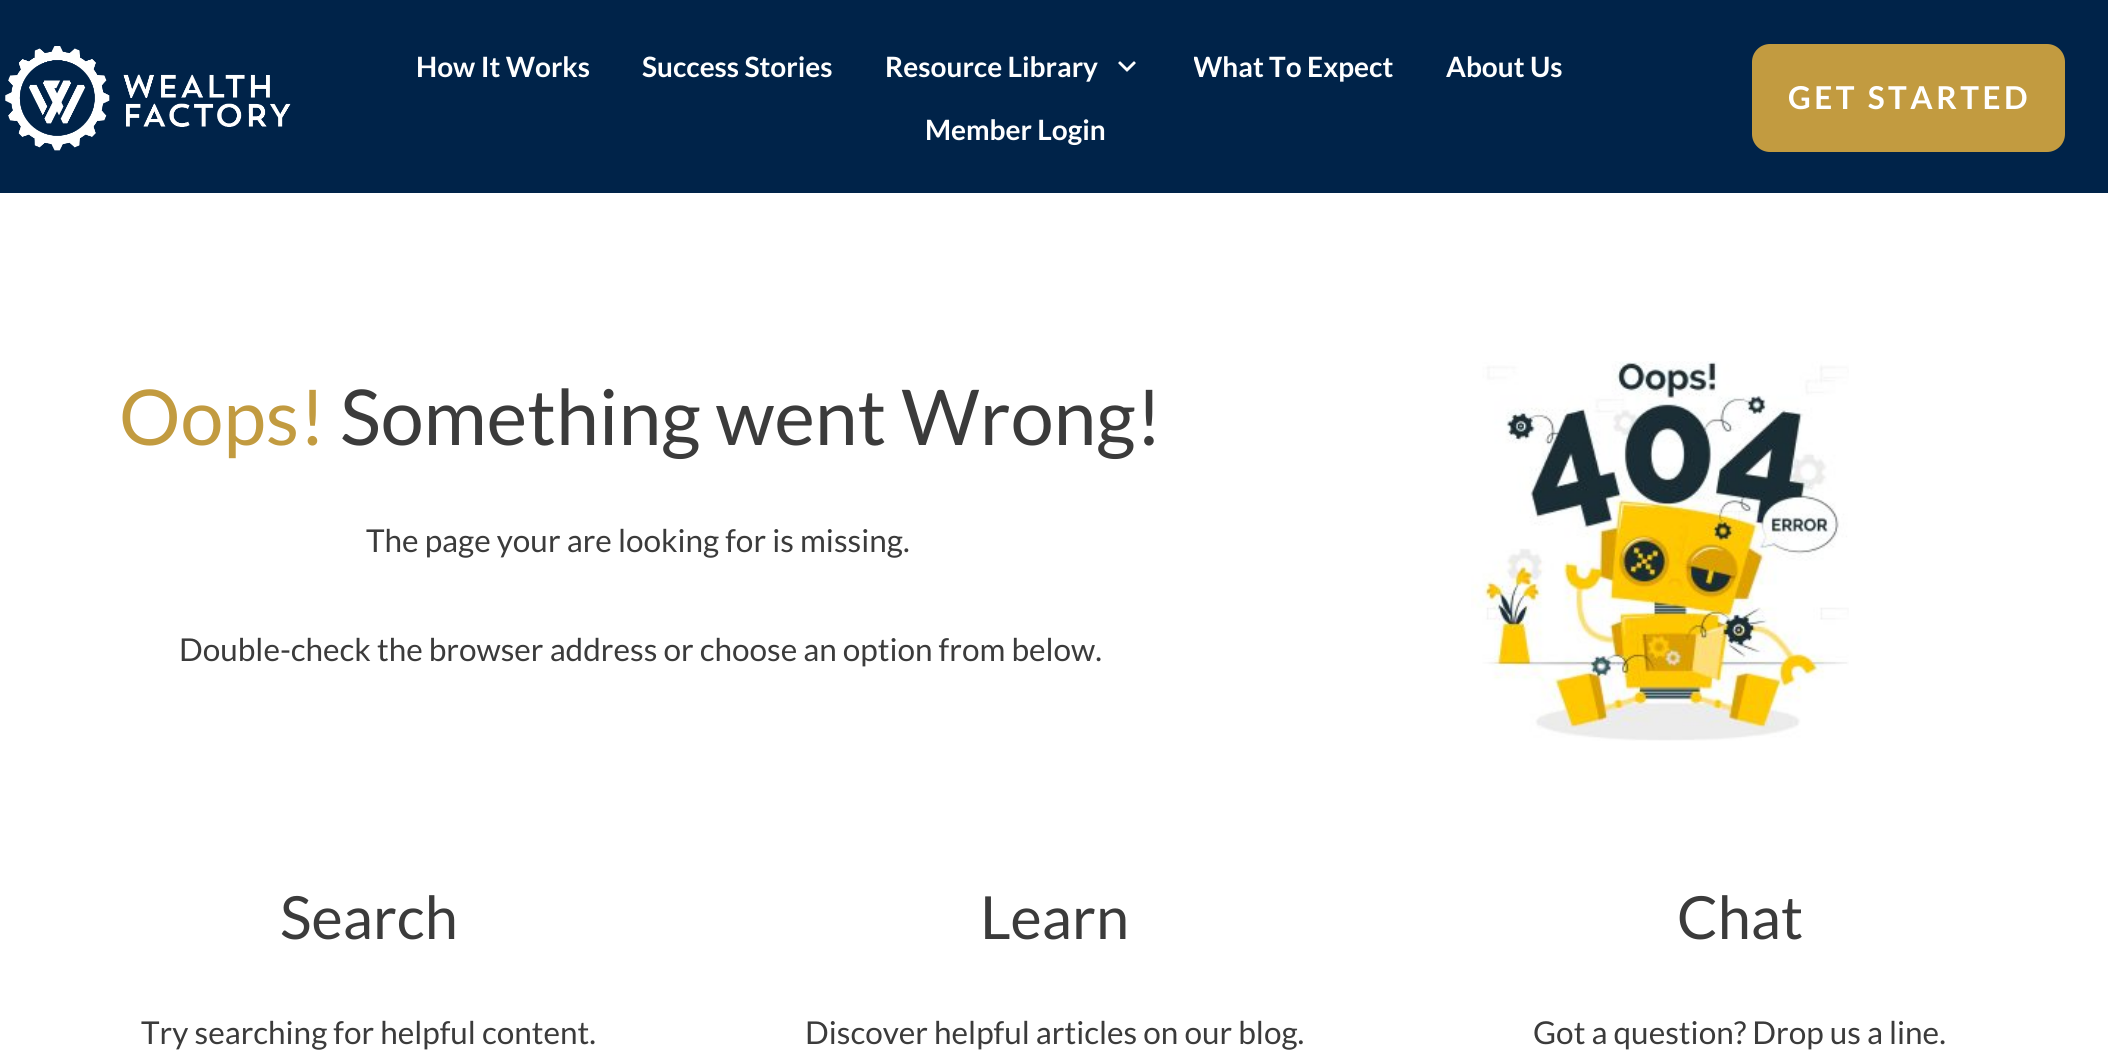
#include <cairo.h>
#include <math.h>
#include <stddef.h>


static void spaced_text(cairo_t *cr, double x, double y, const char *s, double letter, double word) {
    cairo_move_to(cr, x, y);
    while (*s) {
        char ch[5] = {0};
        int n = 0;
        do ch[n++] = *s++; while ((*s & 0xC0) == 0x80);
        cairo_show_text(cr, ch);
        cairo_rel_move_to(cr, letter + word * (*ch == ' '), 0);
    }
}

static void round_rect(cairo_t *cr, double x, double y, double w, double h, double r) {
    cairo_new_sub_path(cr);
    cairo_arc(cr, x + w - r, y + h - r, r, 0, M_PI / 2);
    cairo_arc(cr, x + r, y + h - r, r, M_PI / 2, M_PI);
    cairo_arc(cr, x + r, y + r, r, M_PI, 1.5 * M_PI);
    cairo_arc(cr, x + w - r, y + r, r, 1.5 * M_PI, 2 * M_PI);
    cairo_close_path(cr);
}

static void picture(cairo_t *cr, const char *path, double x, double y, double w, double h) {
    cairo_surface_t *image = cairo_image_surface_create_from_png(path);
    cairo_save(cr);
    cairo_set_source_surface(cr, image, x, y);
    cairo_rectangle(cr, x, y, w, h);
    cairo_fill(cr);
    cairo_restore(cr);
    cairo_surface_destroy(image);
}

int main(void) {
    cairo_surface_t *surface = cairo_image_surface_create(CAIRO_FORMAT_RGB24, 2108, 1058);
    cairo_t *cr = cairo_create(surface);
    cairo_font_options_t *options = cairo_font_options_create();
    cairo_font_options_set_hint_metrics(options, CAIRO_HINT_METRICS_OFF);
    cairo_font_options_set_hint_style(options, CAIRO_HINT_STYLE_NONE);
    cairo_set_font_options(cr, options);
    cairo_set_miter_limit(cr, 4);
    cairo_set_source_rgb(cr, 1, 1, 1);
    cairo_paint(cr);
    cairo_set_source_rgb(cr, 0, 0.137, 0.286);
    cairo_rectangle(cr, 0, 0, 2108, 193);
    cairo_fill(cr);
    picture(cr, "img1.png", 5, 46, 286, 105);
    cairo_select_font_face(cr, "Lato", CAIRO_FONT_SLANT_NORMAL, CAIRO_FONT_WEIGHT_BOLD);
    cairo_set_font_size(cr, 28);
    cairo_set_source_rgb(cr, 1, 1, 1);
    cairo_move_to(cr, 416, 77);
    cairo_show_text(cr, "How It Works");
    cairo_move_to(cr, 642, 77);
    cairo_show_text(cr, "Success Stories");
    cairo_move_to(cr, 885, 77);
    cairo_show_text(cr, "Resource Library");
    picture(cr, "img2.png", 1118, 61, 18, 11);
    cairo_save(cr);
    cairo_rectangle(cr, 1194, 39, 199, 56);
    cairo_clip(cr);
    cairo_move_to(cr, 1193, 77);
    cairo_show_text(cr, "What To Expect");
    cairo_restore(cr);
    cairo_move_to(cr, 1446, 77);
    cairo_show_text(cr, "About Us");
    cairo_move_to(cr, 925, 140);
    cairo_show_text(cr, "Member Login");
    cairo_set_source_rgb(cr, 0.761, 0.608, 0.251);
    round_rect(cr, 1752, 44, 313, 108, 18);
    cairo_fill(cr);
    cairo_set_font_size(cr, 31.5);
    cairo_set_source_rgb(cr, 1, 1, 1);
    spaced_text(cr, 1788, 109, "GET STARTED", 3.5, 0);
    cairo_select_font_face(cr, "Lato", CAIRO_FONT_SLANT_NORMAL, CAIRO_FONT_WEIGHT_NORMAL);
    cairo_set_font_size(cr, 77);
    cairo_set_source_rgb(cr, 0.761, 0.608, 0.251);
    cairo_move_to(cr, 119, 445);
    cairo_show_text(cr, "Oops!");
    cairo_set_source_rgb(cr, 0.231, 0.231, 0.231);
    cairo_move_to(cr, 340, 445);
    cairo_show_text(cr, "Something went Wrong!");
    cairo_set_font_size(cr, 31.5);
    cairo_move_to(cr, 366, 552);
    cairo_show_text(cr, "The page your are looking for is missing.");
    cairo_move_to(cr, 179, 661);
    cairo_show_text(cr, "Double-check the browser address or choose an option from below.");
    picture(cr, "img3.png", 1471, 361, 378, 380);
    cairo_set_font_size(cr, 59.5);
    cairo_move_to(cr, 280, 939);
    cairo_show_text(cr, "Search");
    cairo_set_font_size(cr, 31.5);
    cairo_move_to(cr, 141, 1044);
    cairo_show_text(cr, "Try searching for helpful content.");
    cairo_set_font_size(cr, 59.5);
    cairo_move_to(cr, 980, 939);
    cairo_show_text(cr, "Learn");
    cairo_set_font_size(cr, 31.5);
    cairo_move_to(cr, 805, 1044);
    cairo_show_text(cr, "Discover helpful articles on our blog.");
    cairo_set_font_size(cr, 59.5);
    cairo_move_to(cr, 1677, 939);
    cairo_show_text(cr, "Chat");
    cairo_set_font_size(cr, 31.5);
    cairo_move_to(cr, 1533, 1044);
    cairo_show_text(cr, "Got a question? Drop us a line.");
    cairo_surface_write_to_png(surface, "page.png");
    cairo_font_options_destroy(options);
    cairo_destroy(cr);
    cairo_surface_destroy(surface);
    return 0;
}
